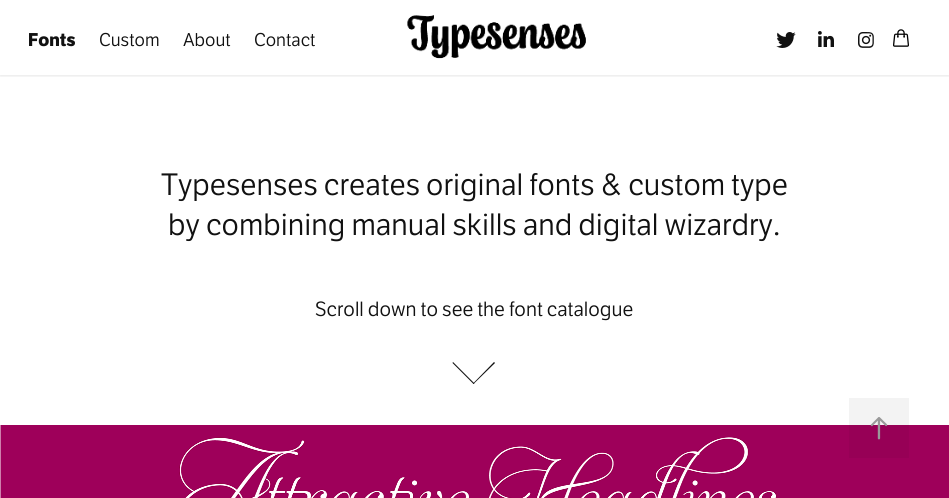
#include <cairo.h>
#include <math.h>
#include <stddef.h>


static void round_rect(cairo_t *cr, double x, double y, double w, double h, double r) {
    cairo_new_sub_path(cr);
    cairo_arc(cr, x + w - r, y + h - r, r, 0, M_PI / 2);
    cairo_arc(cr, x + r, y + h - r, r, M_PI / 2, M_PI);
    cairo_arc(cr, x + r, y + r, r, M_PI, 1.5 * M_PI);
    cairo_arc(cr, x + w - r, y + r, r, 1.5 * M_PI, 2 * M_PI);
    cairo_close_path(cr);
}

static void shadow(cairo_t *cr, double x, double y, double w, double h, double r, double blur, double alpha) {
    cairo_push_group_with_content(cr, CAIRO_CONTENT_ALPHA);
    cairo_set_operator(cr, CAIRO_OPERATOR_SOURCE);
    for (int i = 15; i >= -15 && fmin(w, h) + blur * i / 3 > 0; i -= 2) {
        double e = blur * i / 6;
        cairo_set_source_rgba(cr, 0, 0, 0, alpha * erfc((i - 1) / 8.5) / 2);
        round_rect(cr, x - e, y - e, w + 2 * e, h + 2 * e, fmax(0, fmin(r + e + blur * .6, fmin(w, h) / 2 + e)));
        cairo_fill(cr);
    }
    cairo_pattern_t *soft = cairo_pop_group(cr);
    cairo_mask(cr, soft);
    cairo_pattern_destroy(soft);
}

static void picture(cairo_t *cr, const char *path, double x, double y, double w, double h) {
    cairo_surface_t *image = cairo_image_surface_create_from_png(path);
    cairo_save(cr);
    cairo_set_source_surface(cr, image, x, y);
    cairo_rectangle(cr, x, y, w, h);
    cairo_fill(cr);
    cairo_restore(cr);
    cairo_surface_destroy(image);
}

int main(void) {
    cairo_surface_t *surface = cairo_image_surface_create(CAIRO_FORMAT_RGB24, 949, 498);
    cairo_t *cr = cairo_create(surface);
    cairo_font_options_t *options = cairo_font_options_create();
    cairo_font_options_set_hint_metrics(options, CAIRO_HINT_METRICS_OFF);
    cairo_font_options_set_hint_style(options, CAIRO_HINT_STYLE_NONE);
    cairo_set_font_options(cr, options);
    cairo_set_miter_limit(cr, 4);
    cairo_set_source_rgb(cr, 1, 1, 1);
    cairo_paint(cr);
    cairo_save(cr);
    cairo_rectangle(cr, 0, 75, 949, 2);
    cairo_clip(cr);
    cairo_set_source_rgb(cr, 0, 0, 0);
    shadow(cr, 0, 1, 949, 75, 0, 1.5, 0.1);
    cairo_restore(cr);
    cairo_select_font_face(cr, "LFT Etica", CAIRO_FONT_SLANT_NORMAL, CAIRO_FONT_WEIGHT_BOLD);
    cairo_set_font_size(cr, 18);
    cairo_set_source_rgb(cr, 0.067, 0.067, 0.067);
    cairo_move_to(cr, 28, 46);
    cairo_show_text(cr, "Fonts");
    cairo_select_font_face(cr, "LFT Etica", CAIRO_FONT_SLANT_NORMAL, CAIRO_FONT_WEIGHT_NORMAL);
    cairo_move_to(cr, 99, 46);
    cairo_show_text(cr, "Custom");
    cairo_move_to(cr, 183, 46);
    cairo_show_text(cr, "About");
    cairo_move_to(cr, 254, 46);
    cairo_show_text(cr, "Contact");
    picture(cr, "img1.png", 407, 15, 179, 44);
    picture(cr, "img2.png", 776, 32, 20, 16);
    picture(cr, "img3.png", 818, 31, 16, 16);
    picture(cr, "img4.png", 858, 32, 16, 16);
    picture(cr, "img5.png", 893, 29, 16, 18);
    cairo_set_font_size(cr, 30);
    cairo_move_to(cr, 161, 195);
    cairo_show_text(cr, "Typesenses creates original fonts & custom type");
    cairo_move_to(cr, 168, 235);
    cairo_show_text(cr, "by combining manual skills and digital wizardry.");
    cairo_set_font_size(cr, 20);
    cairo_move_to(cr, 315, 316);
    cairo_show_text(cr, "Scroll down to see the font catalogue");
    cairo_new_path(cr);
    cairo_move_to(cr, 494, 362);
    cairo_line_to(cr, 495, 363);
    cairo_line_to(cr, 473.5, 384);
    cairo_line_to(cr, 473, 383.5);
    cairo_close_path(cr);
    cairo_fill(cr);
    cairo_new_path(cr);
    cairo_move_to(cr, 453, 362);
    cairo_line_to(cr, 474.5, 383.5);
    cairo_line_to(cr, 473.5, 384);
    cairo_line_to(cr, 452.5, 363);
    cairo_close_path(cr);
    cairo_fill(cr);
    picture(cr, "img7.png", 0, 425, 949, 73);
    cairo_set_source_rgba(cr, 0, 0, 0, 0.05);
    cairo_rectangle(cr, 849, 398, 60, 60);
    cairo_fill(cr);
    picture(cr, "img6.png", 870, 417, 18, 23);
    cairo_surface_write_to_png(surface, "page.png");
    cairo_font_options_destroy(options);
    cairo_destroy(cr);
    cairo_surface_destroy(surface);
    return 0;
}
